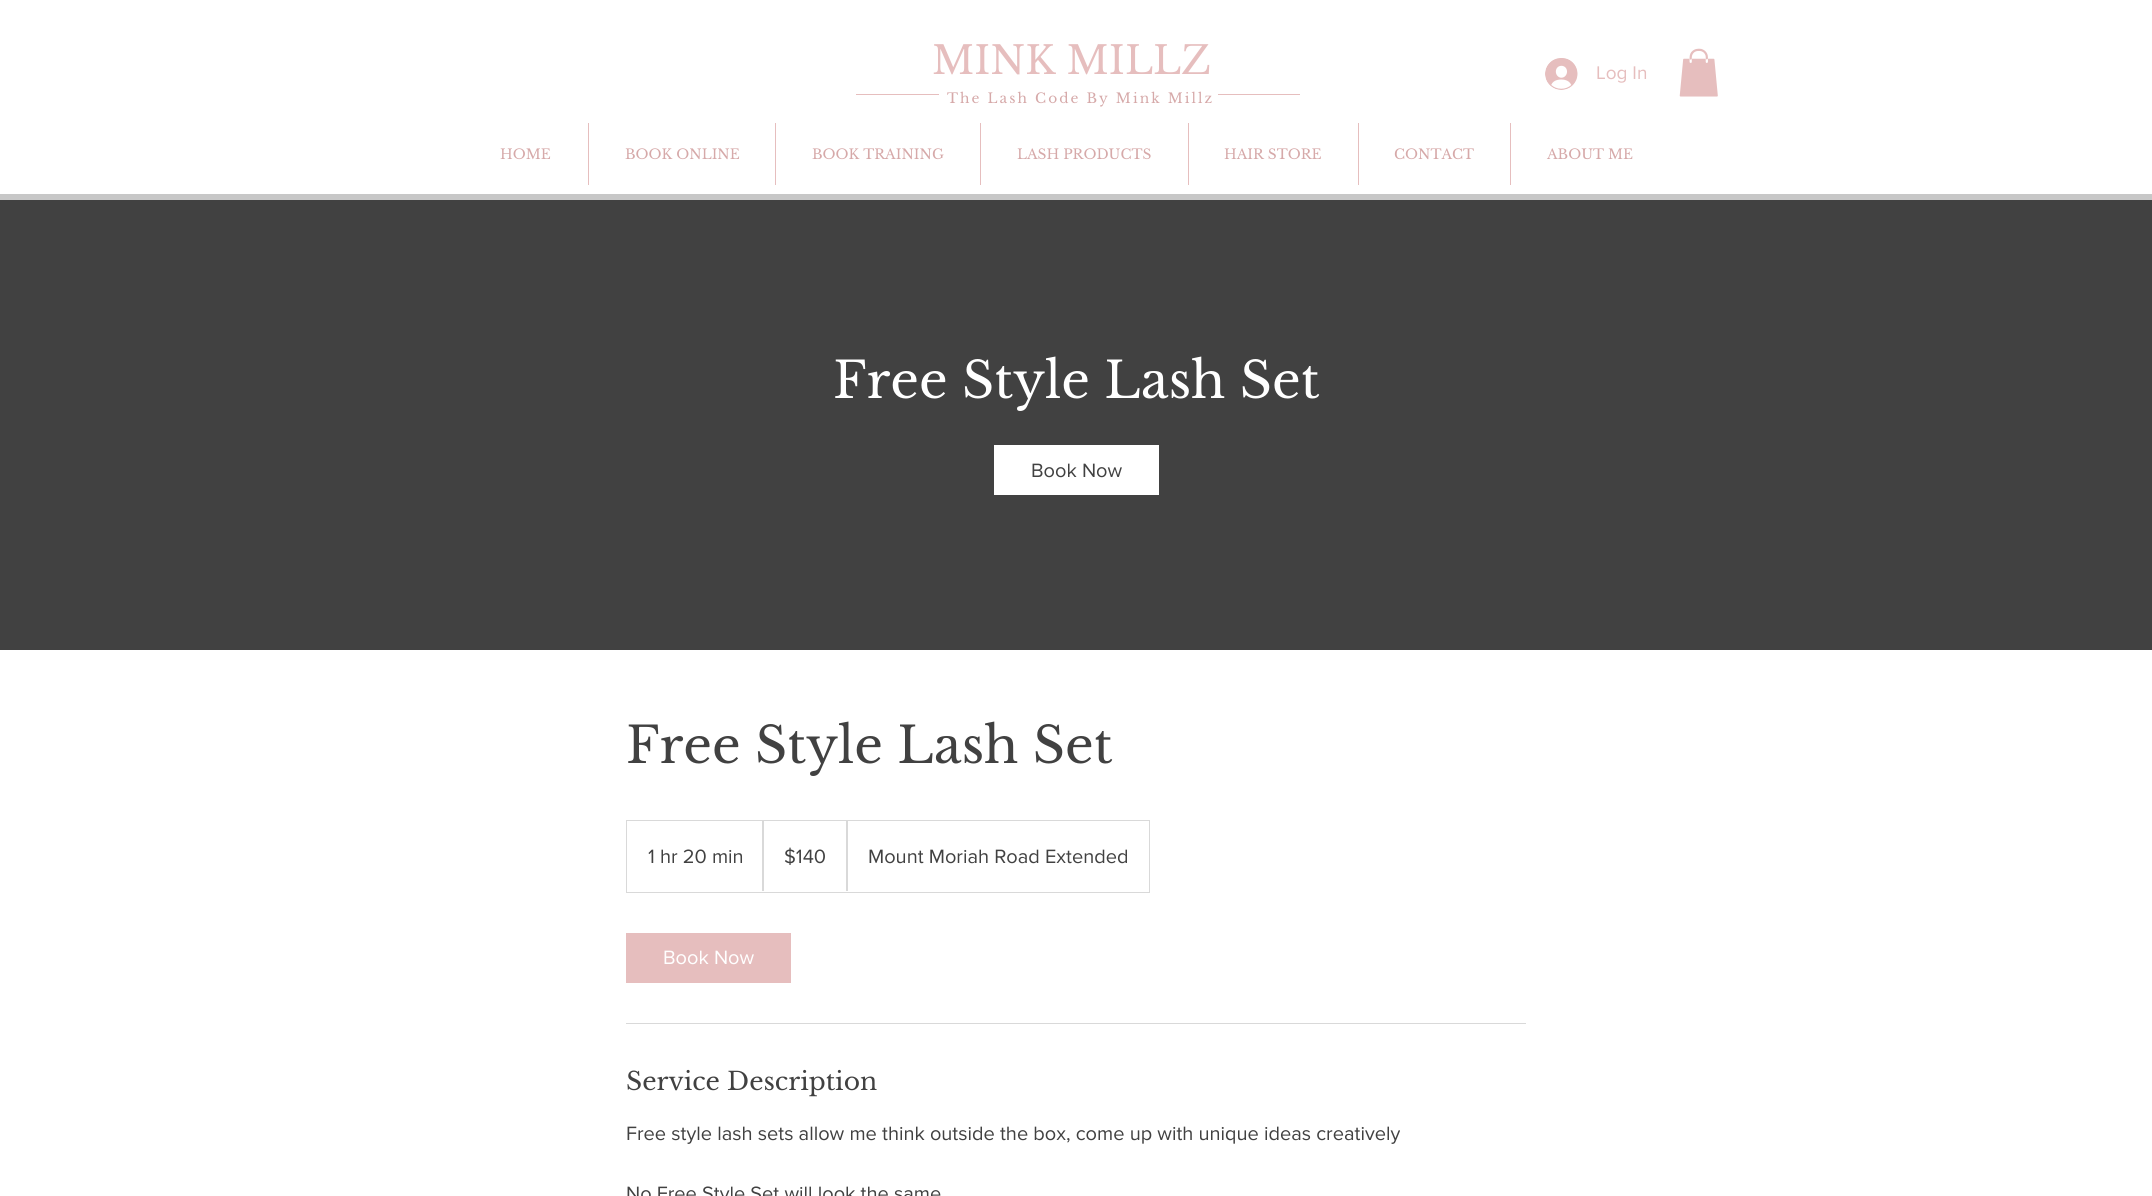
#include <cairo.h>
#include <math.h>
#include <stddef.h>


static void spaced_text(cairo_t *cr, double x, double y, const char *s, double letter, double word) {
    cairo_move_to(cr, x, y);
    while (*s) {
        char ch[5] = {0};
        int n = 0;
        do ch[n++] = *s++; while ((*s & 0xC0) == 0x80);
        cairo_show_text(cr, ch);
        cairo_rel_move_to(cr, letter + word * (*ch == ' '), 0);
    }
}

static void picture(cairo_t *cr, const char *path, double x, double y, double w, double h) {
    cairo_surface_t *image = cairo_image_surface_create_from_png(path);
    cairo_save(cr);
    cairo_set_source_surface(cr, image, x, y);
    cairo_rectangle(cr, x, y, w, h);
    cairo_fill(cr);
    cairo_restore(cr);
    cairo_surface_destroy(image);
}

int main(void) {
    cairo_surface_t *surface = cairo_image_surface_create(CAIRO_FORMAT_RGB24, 2152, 1196);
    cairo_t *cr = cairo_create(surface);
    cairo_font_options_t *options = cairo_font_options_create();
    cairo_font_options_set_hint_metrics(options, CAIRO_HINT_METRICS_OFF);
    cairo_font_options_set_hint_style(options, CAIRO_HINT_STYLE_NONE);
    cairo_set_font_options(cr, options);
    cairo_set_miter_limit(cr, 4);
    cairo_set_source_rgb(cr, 1, 1, 1);
    cairo_paint(cr);
    cairo_select_font_face(cr, "Libre Baskerville", CAIRO_FONT_SLANT_NORMAL, CAIRO_FONT_WEIGHT_NORMAL);
    cairo_set_font_size(cr, 38.75);
    cairo_set_source_rgb(cr, 0.902, 0.745, 0.745);
    cairo_move_to(cr, 932, 74);
    cairo_show_text(cr, "MINK MILLZ");
    picture(cr, "img1.png", 1545, 58, 33, 32);
    cairo_select_font_face(cr, "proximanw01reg", CAIRO_FONT_SLANT_NORMAL, CAIRO_FONT_WEIGHT_NORMAL);
    cairo_set_font_size(cr, 19);
    cairo_move_to(cr, 1596, 79);
    cairo_show_text(cr, "Log In");
    picture(cr, "img2.png", 1679, 48, 39, 49);
    cairo_rectangle(cr, 856, 94, 83, 1);
    cairo_fill(cr);
    cairo_select_font_face(cr, "Libre Baskerville", CAIRO_FONT_SLANT_NORMAL, CAIRO_FONT_WEIGHT_NORMAL);
    cairo_set_font_size(cr, 13.75);
    cairo_set_source_rgb(cr, 0.839, 0.663, 0.663);
    spaced_text(cr, 947, 103, "The Lash Code By Mink Millz", 2.05, 0);
    cairo_set_source_rgb(cr, 0.902, 0.745, 0.745);
    cairo_rectangle(cr, 1218, 94, 82, 1);
    cairo_fill(cr);
    cairo_set_source_rgb(cr, 0.839, 0.663, 0.663);
    cairo_move_to(cr, 500, 159);
    cairo_show_text(cr, "HOME");
    cairo_set_source_rgb(cr, 0.902, 0.745, 0.745);
    cairo_rectangle(cr, 588, 123, 1, 62);
    cairo_fill(cr);
    cairo_set_source_rgb(cr, 0.839, 0.663, 0.663);
    cairo_move_to(cr, 625, 159);
    cairo_show_text(cr, "BOOK ONLINE");
    cairo_set_source_rgb(cr, 0.902, 0.745, 0.745);
    cairo_rectangle(cr, 775, 123, 1, 62);
    cairo_fill(cr);
    cairo_set_source_rgb(cr, 0.839, 0.663, 0.663);
    cairo_move_to(cr, 812, 159);
    cairo_show_text(cr, "BOOK TRAINING");
    cairo_set_source_rgb(cr, 0.902, 0.745, 0.745);
    cairo_rectangle(cr, 980, 123, 1, 62);
    cairo_fill(cr);
    cairo_set_source_rgb(cr, 0.839, 0.663, 0.663);
    cairo_move_to(cr, 1017, 159);
    cairo_show_text(cr, "LASH PRODUCTS");
    cairo_set_source_rgb(cr, 0.902, 0.745, 0.745);
    cairo_rectangle(cr, 1188, 123, 1, 62);
    cairo_fill(cr);
    cairo_set_source_rgb(cr, 0.839, 0.663, 0.663);
    cairo_move_to(cr, 1224, 159);
    cairo_show_text(cr, "HAIR STORE");
    cairo_set_source_rgb(cr, 0.902, 0.745, 0.745);
    cairo_rectangle(cr, 1358, 123, 1, 62);
    cairo_fill(cr);
    cairo_set_source_rgb(cr, 0.839, 0.663, 0.663);
    cairo_move_to(cr, 1394, 159);
    cairo_show_text(cr, "CONTACT");
    cairo_set_source_rgb(cr, 0.902, 0.745, 0.745);
    cairo_rectangle(cr, 1510, 123, 1, 62);
    cairo_fill(cr);
    cairo_set_source_rgb(cr, 0.839, 0.663, 0.663);
    cairo_move_to(cr, 1547, 159);
    cairo_show_text(cr, "ABOUT ME");
    cairo_set_source_rgb(cr, 0.78, 0.78, 0.78);
    cairo_rectangle(cr, 0, 194, 2152, 6);
    cairo_fill(cr);
    cairo_set_source_rgb(cr, 0.255, 0.255, 0.255);
    cairo_rectangle(cr, 0, 200, 2152, 450);
    cairo_fill(cr);
    cairo_set_font_size(cr, 50);
    cairo_set_source_rgb(cr, 1, 1, 1);
    cairo_move_to(cr, 833, 398);
    cairo_show_text(cr, "Free Style Lash Set");
    cairo_rectangle(cr, 994, 445, 165, 50);
    cairo_fill(cr);
    cairo_select_font_face(cr, "proximanw01reg", CAIRO_FONT_SLANT_NORMAL, CAIRO_FONT_WEIGHT_NORMAL);
    cairo_set_font_size(cr, 20);
    cairo_set_source_rgb(cr, 0.255, 0.255, 0.255);
    cairo_move_to(cr, 1031, 477);
    cairo_show_text(cr, "Book Now");
    cairo_select_font_face(cr, "Libre Baskerville", CAIRO_FONT_SLANT_NORMAL, CAIRO_FONT_WEIGHT_NORMAL);
    cairo_set_font_size(cr, 50);
    cairo_move_to(cr, 626, 763);
    cairo_show_text(cr, "Free Style Lash Set");
    cairo_rectangle(cr, 626.5, 820.5, 523, 72);
    cairo_set_source_rgb(cr, 0.851, 0.851, 0.851);
    cairo_set_line_width(cr, 1);
    cairo_stroke(cr);
    cairo_select_font_face(cr, "proximanw01reg", CAIRO_FONT_SLANT_NORMAL, CAIRO_FONT_WEIGHT_NORMAL);
    cairo_set_font_size(cr, 20);
    cairo_set_source_rgb(cr, 0.255, 0.255, 0.255);
    cairo_move_to(cr, 648, 863);
    cairo_show_text(cr, "1 hr 20 min");
    cairo_set_source_rgb(cr, 0.851, 0.851, 0.851);
    cairo_new_path(cr);
    cairo_move_to(cr, 762, 891);
    cairo_line_to(cr, 762, 820);
    cairo_line_to(cr, 764, 821);
    cairo_line_to(cr, 764, 891);
    cairo_close_path(cr);
    cairo_fill(cr);
    cairo_set_source_rgb(cr, 0.255, 0.255, 0.255);
    cairo_move_to(cr, 784, 863);
    cairo_show_text(cr, "$140");
    cairo_set_source_rgb(cr, 0.851, 0.851, 0.851);
    cairo_new_path(cr);
    cairo_move_to(cr, 846, 891);
    cairo_line_to(cr, 846, 820);
    cairo_line_to(cr, 848, 821);
    cairo_line_to(cr, 848, 891);
    cairo_close_path(cr);
    cairo_fill(cr);
    cairo_set_source_rgb(cr, 0.255, 0.255, 0.255);
    cairo_move_to(cr, 868, 863);
    cairo_show_text(cr, "Mount Moriah Road Extended");
    cairo_set_source_rgb(cr, 0.902, 0.745, 0.745);
    cairo_rectangle(cr, 626, 933, 165, 50);
    cairo_fill(cr);
    cairo_set_source_rgb(cr, 1, 1, 1);
    cairo_move_to(cr, 663, 964);
    cairo_show_text(cr, "Book Now");
    cairo_set_source_rgb(cr, 0.851, 0.851, 0.851);
    cairo_rectangle(cr, 626, 1023, 900, 1);
    cairo_fill(cr);
    cairo_select_font_face(cr, "Libre Baskerville", CAIRO_FONT_SLANT_NORMAL, CAIRO_FONT_WEIGHT_NORMAL);
    cairo_set_font_size(cr, 25);
    cairo_set_source_rgb(cr, 0.255, 0.255, 0.255);
    cairo_move_to(cr, 626, 1090);
    cairo_show_text(cr, "Service Description");
    cairo_select_font_face(cr, "proximanw01reg", CAIRO_FONT_SLANT_NORMAL, CAIRO_FONT_WEIGHT_NORMAL);
    cairo_set_font_size(cr, 20);
    cairo_move_to(cr, 626, 1140);
    cairo_show_text(cr, "Free style lash sets allow me think outside the box, come up with unique ideas creatively");
    cairo_move_to(cr, 626, 1200);
    cairo_show_text(cr, "No Free Style Set will look the same");
    cairo_surface_write_to_png(surface, "page.png");
    cairo_font_options_destroy(options);
    cairo_destroy(cr);
    cairo_surface_destroy(surface);
    return 0;
}
